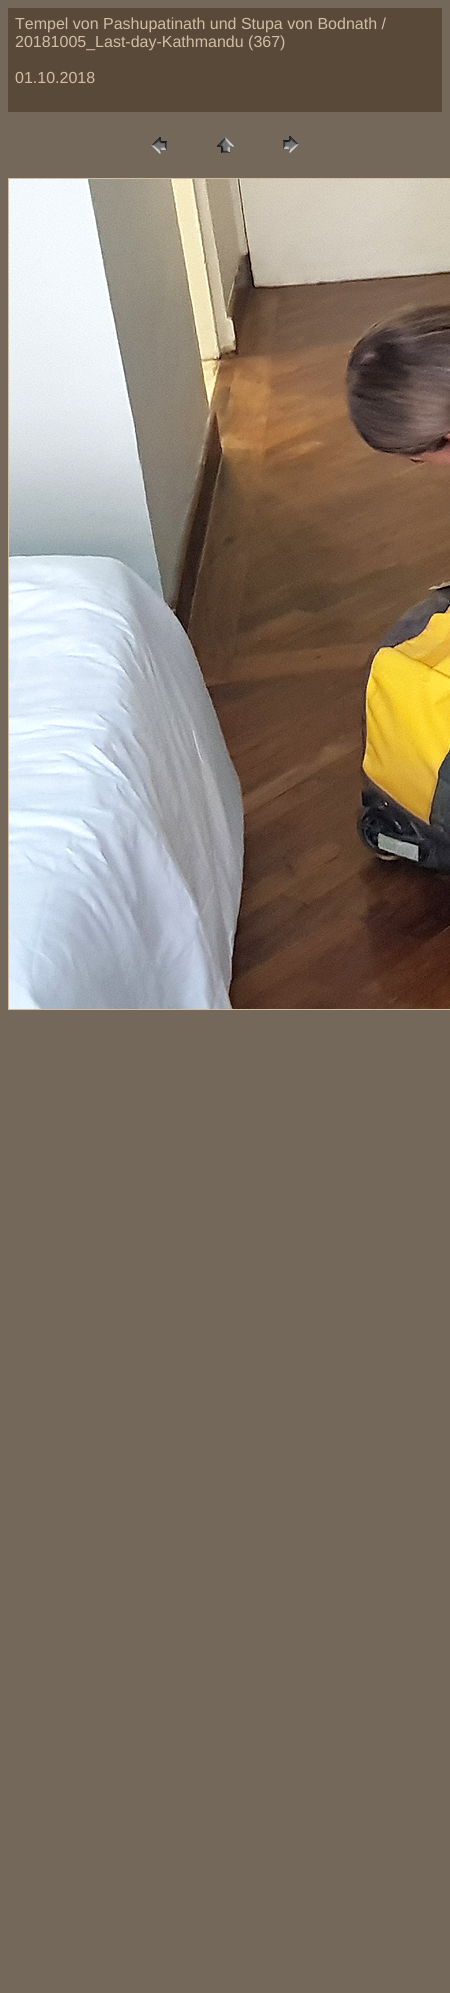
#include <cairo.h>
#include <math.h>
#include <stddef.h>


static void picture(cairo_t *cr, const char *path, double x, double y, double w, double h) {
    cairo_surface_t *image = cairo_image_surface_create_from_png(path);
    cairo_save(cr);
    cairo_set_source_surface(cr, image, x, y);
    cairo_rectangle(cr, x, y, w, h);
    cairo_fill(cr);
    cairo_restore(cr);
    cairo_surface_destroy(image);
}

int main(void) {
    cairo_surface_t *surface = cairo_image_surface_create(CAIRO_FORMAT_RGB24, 450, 1993);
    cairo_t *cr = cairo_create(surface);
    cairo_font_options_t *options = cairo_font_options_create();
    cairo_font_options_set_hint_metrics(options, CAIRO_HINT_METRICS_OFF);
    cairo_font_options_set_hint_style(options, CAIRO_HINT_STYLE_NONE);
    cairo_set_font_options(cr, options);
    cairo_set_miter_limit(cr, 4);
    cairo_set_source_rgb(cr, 0.455, 0.408, 0.353);
    cairo_paint(cr);
    cairo_set_source_rgb(cr, 0.345, 0.286, 0.224);
    cairo_rectangle(cr, 8, 8, 434, 104);
    cairo_fill(cr);
    cairo_select_font_face(cr, "Liberation Sans", CAIRO_FONT_SLANT_NORMAL, CAIRO_FONT_WEIGHT_NORMAL);
    cairo_set_font_size(cr, 16);
    cairo_set_source_rgb(cr, 0.824, 0.741, 0.647);
    cairo_move_to(cr, 15, 29);
    cairo_show_text(cr, "Tempel von Pashupatinath und Stupa von Bodnath /");
    cairo_move_to(cr, 15, 47);
    cairo_show_text(cr, "20181005_Last-day-Kathmandu (367)");
    cairo_move_to(cr, 15, 83);
    cairo_show_text(cr, "01.10.2018");
    picture(cr, "img1.png", 151, 137, 16, 17);
    picture(cr, "img2.png", 217, 137, 17, 16);
    picture(cr, "img3.png", 283, 136, 16, 17);
    cairo_rectangle(cr, 8.5, 178.5, 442, 831);
    cairo_set_line_width(cr, 1);
    cairo_stroke(cr);
    picture(cr, "img4.png", 9, 179, 441, 830);
    cairo_surface_write_to_png(surface, "page.png");
    cairo_font_options_destroy(options);
    cairo_destroy(cr);
    cairo_surface_destroy(surface);
    return 0;
}
